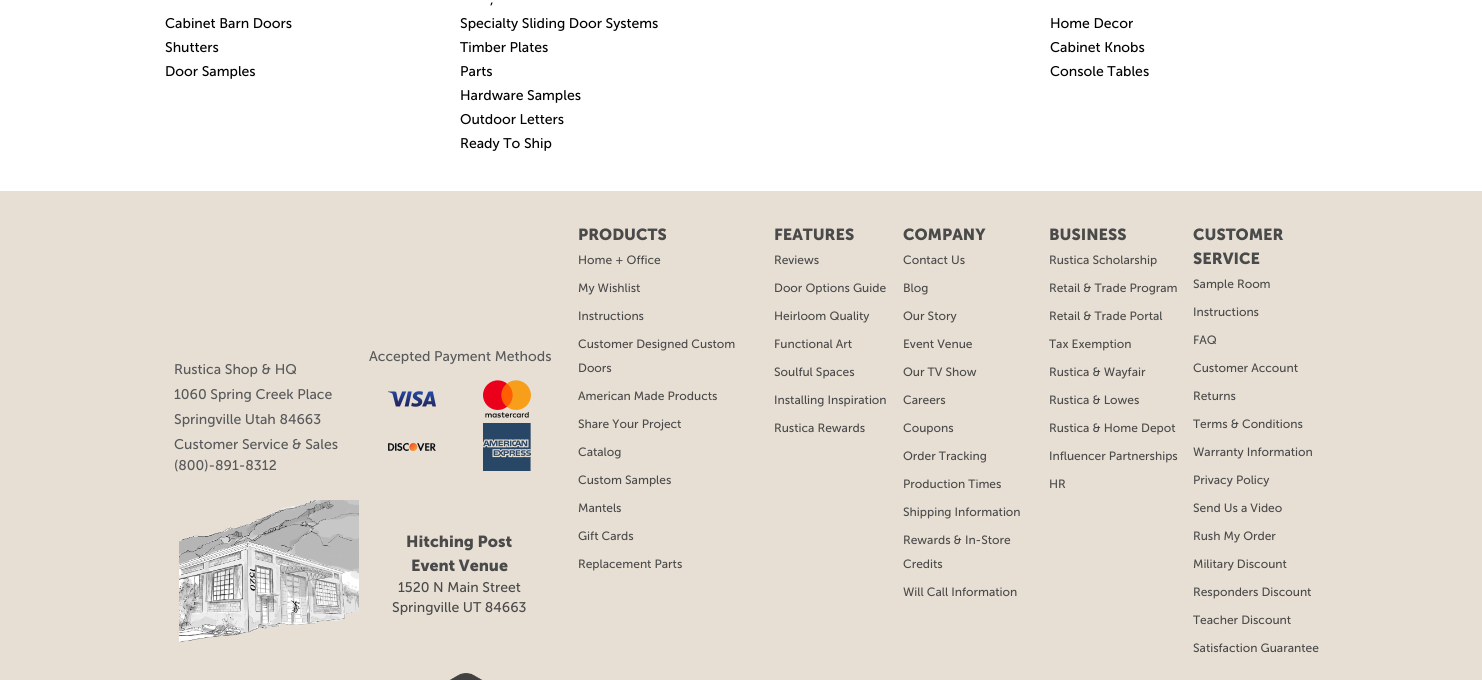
#include <cairo.h>
#include <math.h>
#include <stddef.h>


static void picture(cairo_t *cr, const char *path, double x, double y, double w, double h) {
    cairo_surface_t *image = cairo_image_surface_create_from_png(path);
    cairo_save(cr);
    cairo_set_source_surface(cr, image, x, y);
    cairo_rectangle(cr, x, y, w, h);
    cairo_fill(cr);
    cairo_restore(cr);
    cairo_surface_destroy(image);
}

int main(void) {
    cairo_surface_t *surface = cairo_image_surface_create(CAIRO_FORMAT_RGB24, 1482, 680);
    cairo_t *cr = cairo_create(surface);
    cairo_font_options_t *options = cairo_font_options_create();
    cairo_font_options_set_hint_metrics(options, CAIRO_HINT_METRICS_OFF);
    cairo_font_options_set_hint_style(options, CAIRO_HINT_STYLE_NONE);
    cairo_set_font_options(cr, options);
    cairo_set_miter_limit(cr, 4);
    cairo_set_source_rgb(cr, 1, 1, 1);
    cairo_paint(cr);
    cairo_select_font_face(cr, "Museo Sans", CAIRO_FONT_SLANT_NORMAL, CAIRO_FONT_WEIGHT_NORMAL);
    cairo_set_font_size(cr, 14);
    cairo_set_source_rgb(cr, 0, 0, 0);
    cairo_move_to(cr, 165, 28);
    cairo_show_text(cr, "Cabinet Barn Doors");
    cairo_move_to(cr, 165, 52);
    cairo_show_text(cr, "Shutters");
    cairo_move_to(cr, 165, 76);
    cairo_show_text(cr, "Door Samples");
    cairo_move_to(cr, 490, 4);
    cairo_show_text(cr, ",");
    cairo_move_to(cr, 460, 28);
    cairo_show_text(cr, "Specialty Sliding Door Systems");
    cairo_move_to(cr, 460, 52);
    cairo_show_text(cr, "Timber Plates");
    cairo_move_to(cr, 460, 76);
    cairo_show_text(cr, "Parts");
    cairo_move_to(cr, 460, 100);
    cairo_show_text(cr, "Hardware Samples");
    cairo_move_to(cr, 460, 124);
    cairo_show_text(cr, "Outdoor Letters");
    cairo_move_to(cr, 460, 148);
    cairo_show_text(cr, "Ready To Ship");
    cairo_move_to(cr, 1050, 28);
    cairo_show_text(cr, "Home Decor");
    cairo_move_to(cr, 1050, 52);
    cairo_show_text(cr, "Cabinet Knobs");
    cairo_move_to(cr, 1050, 76);
    cairo_show_text(cr, "Console Tables");
    cairo_set_source_rgb(cr, 0.906, 0.875, 0.831);
    cairo_rectangle(cr, 0, 191, 1482, 489);
    cairo_fill(cr);
    cairo_set_source_rgb(cr, 0.345, 0.349, 0.357);
    cairo_move_to(cr, 369, 361);
    cairo_show_text(cr, "Accepted Payment Methods");
    picture(cr, "img1.png", 388, 391, 48, 16);
    picture(cr, "img2.png", 483, 380, 48, 38);
    picture(cr, "img3.png", 388, 443, 48, 8);
    picture(cr, "img4.png", 483, 423, 48, 48);
    cairo_move_to(cr, 174, 374);
    cairo_show_text(cr, "Rustica Shop & HQ");
    cairo_move_to(cr, 174, 399);
    cairo_show_text(cr, "1060 Spring Creek Place");
    cairo_move_to(cr, 174, 424);
    cairo_show_text(cr, "Springville Utah 84663");
    cairo_move_to(cr, 174, 449);
    cairo_show_text(cr, "Customer Service & Sales");
    cairo_move_to(cr, 174, 470);
    cairo_show_text(cr, "(800)-891-8312");
    picture(cr, "img5.png", 179, 500, 180, 143);
    cairo_select_font_face(cr, "Museo Sans", CAIRO_FONT_SLANT_NORMAL, CAIRO_FONT_WEIGHT_BOLD);
    cairo_set_font_size(cr, 16);
    cairo_set_source_rgb(cr, 0.29, 0.29, 0.29);
    cairo_move_to(cr, 406, 547);
    cairo_show_text(cr, "Hitching Post");
    cairo_move_to(cr, 411, 571);
    cairo_show_text(cr, "Event Venue");
    cairo_select_font_face(cr, "Museo Sans", CAIRO_FONT_SLANT_NORMAL, CAIRO_FONT_WEIGHT_NORMAL);
    cairo_set_font_size(cr, 14);
    cairo_move_to(cr, 398, 592);
    cairo_show_text(cr, "1520 N Main Street");
    cairo_move_to(cr, 392, 612);
    cairo_show_text(cr, "Springville UT 84663");
    picture(cr, "img6.png", 449, 673, 34, 7);
    cairo_select_font_face(cr, "Museo Sans", CAIRO_FONT_SLANT_NORMAL, CAIRO_FONT_WEIGHT_BOLD);
    cairo_set_font_size(cr, 16);
    cairo_move_to(cr, 578, 240);
    cairo_show_text(cr, "PRODUCTS");
    cairo_select_font_face(cr, "Museo Sans", CAIRO_FONT_SLANT_NORMAL, CAIRO_FONT_WEIGHT_NORMAL);
    cairo_set_font_size(cr, 12);
    cairo_move_to(cr, 578, 264);
    cairo_show_text(cr, "Home + Office");
    cairo_move_to(cr, 578, 292);
    cairo_show_text(cr, "My Wishlist");
    cairo_move_to(cr, 578, 320);
    cairo_show_text(cr, "Instructions");
    cairo_move_to(cr, 578, 348);
    cairo_show_text(cr, "Customer Designed Custom");
    cairo_move_to(cr, 578, 372);
    cairo_show_text(cr, "Doors");
    cairo_move_to(cr, 578, 400);
    cairo_show_text(cr, "American Made Products");
    cairo_move_to(cr, 578, 428);
    cairo_show_text(cr, "Share Your Project");
    cairo_move_to(cr, 578, 456);
    cairo_show_text(cr, "Catalog");
    cairo_move_to(cr, 578, 484);
    cairo_show_text(cr, "Custom Samples");
    cairo_move_to(cr, 578, 512);
    cairo_show_text(cr, "Mantels");
    cairo_move_to(cr, 578, 540);
    cairo_show_text(cr, "Gift Cards");
    cairo_move_to(cr, 578, 568);
    cairo_show_text(cr, "Replacement Parts");
    cairo_select_font_face(cr, "Museo Sans", CAIRO_FONT_SLANT_NORMAL, CAIRO_FONT_WEIGHT_BOLD);
    cairo_set_font_size(cr, 16);
    cairo_move_to(cr, 774, 240);
    cairo_show_text(cr, "FEATURES");
    cairo_select_font_face(cr, "Museo Sans", CAIRO_FONT_SLANT_NORMAL, CAIRO_FONT_WEIGHT_NORMAL);
    cairo_set_font_size(cr, 12);
    cairo_move_to(cr, 774, 264);
    cairo_show_text(cr, "Reviews");
    cairo_move_to(cr, 774, 292);
    cairo_show_text(cr, "Door Options Guide");
    cairo_move_to(cr, 774, 320);
    cairo_show_text(cr, "Heirloom Quality");
    cairo_move_to(cr, 774, 348);
    cairo_show_text(cr, "Functional Art");
    cairo_move_to(cr, 774, 376);
    cairo_show_text(cr, "Soulful Spaces");
    cairo_move_to(cr, 774, 404);
    cairo_show_text(cr, "Installing Inspiration");
    cairo_move_to(cr, 774, 432);
    cairo_show_text(cr, "Rustica Rewards");
    cairo_select_font_face(cr, "Museo Sans", CAIRO_FONT_SLANT_NORMAL, CAIRO_FONT_WEIGHT_BOLD);
    cairo_set_font_size(cr, 16);
    cairo_move_to(cr, 903, 240);
    cairo_show_text(cr, "COMPANY");
    cairo_select_font_face(cr, "Museo Sans", CAIRO_FONT_SLANT_NORMAL, CAIRO_FONT_WEIGHT_NORMAL);
    cairo_set_font_size(cr, 12);
    cairo_move_to(cr, 903, 264);
    cairo_show_text(cr, "Contact Us");
    cairo_move_to(cr, 903, 292);
    cairo_show_text(cr, "Blog");
    cairo_move_to(cr, 903, 320);
    cairo_show_text(cr, "Our Story");
    cairo_move_to(cr, 903, 348);
    cairo_show_text(cr, "Event Venue");
    cairo_move_to(cr, 903, 376);
    cairo_show_text(cr, "Our TV Show");
    cairo_move_to(cr, 903, 404);
    cairo_show_text(cr, "Careers");
    cairo_move_to(cr, 903, 432);
    cairo_show_text(cr, "Coupons");
    cairo_move_to(cr, 903, 460);
    cairo_show_text(cr, "Order Tracking");
    cairo_move_to(cr, 903, 488);
    cairo_show_text(cr, "Production Times");
    cairo_move_to(cr, 903, 516);
    cairo_show_text(cr, "Shipping Information");
    cairo_move_to(cr, 903, 544);
    cairo_show_text(cr, "Rewards & In-Store");
    cairo_move_to(cr, 903, 568);
    cairo_show_text(cr, "Credits");
    cairo_move_to(cr, 903, 596);
    cairo_show_text(cr, "Will Call Information");
    cairo_select_font_face(cr, "Museo Sans", CAIRO_FONT_SLANT_NORMAL, CAIRO_FONT_WEIGHT_BOLD);
    cairo_set_font_size(cr, 16);
    cairo_move_to(cr, 1049, 240);
    cairo_show_text(cr, "BUSINESS");
    cairo_select_font_face(cr, "Museo Sans", CAIRO_FONT_SLANT_NORMAL, CAIRO_FONT_WEIGHT_NORMAL);
    cairo_set_font_size(cr, 12);
    cairo_move_to(cr, 1049, 264);
    cairo_show_text(cr, "Rustica Scholarship");
    cairo_move_to(cr, 1049, 292);
    cairo_show_text(cr, "Retail & Trade Program");
    cairo_move_to(cr, 1049, 320);
    cairo_show_text(cr, "Retail & Trade Portal");
    cairo_move_to(cr, 1049, 348);
    cairo_show_text(cr, "Tax Exemption");
    cairo_move_to(cr, 1049, 376);
    cairo_show_text(cr, "Rustica & Wayfair");
    cairo_move_to(cr, 1049, 404);
    cairo_show_text(cr, "Rustica & Lowes");
    cairo_move_to(cr, 1049, 432);
    cairo_show_text(cr, "Rustica & Home Depot");
    cairo_move_to(cr, 1049, 460);
    cairo_show_text(cr, "Influencer Partnerships");
    cairo_move_to(cr, 1049, 488);
    cairo_show_text(cr, "HR");
    cairo_select_font_face(cr, "Museo Sans", CAIRO_FONT_SLANT_NORMAL, CAIRO_FONT_WEIGHT_BOLD);
    cairo_set_font_size(cr, 16);
    cairo_move_to(cr, 1193, 240);
    cairo_show_text(cr, "CUSTOMER");
    cairo_move_to(cr, 1193, 264);
    cairo_show_text(cr, "SERVICE");
    cairo_select_font_face(cr, "Museo Sans", CAIRO_FONT_SLANT_NORMAL, CAIRO_FONT_WEIGHT_NORMAL);
    cairo_set_font_size(cr, 12);
    cairo_move_to(cr, 1193, 288);
    cairo_show_text(cr, "Sample Room");
    cairo_move_to(cr, 1193, 316);
    cairo_show_text(cr, "Instructions");
    cairo_move_to(cr, 1193, 344);
    cairo_show_text(cr, "FAQ");
    cairo_move_to(cr, 1193, 372);
    cairo_show_text(cr, "Customer Account");
    cairo_move_to(cr, 1193, 400);
    cairo_show_text(cr, "Returns");
    cairo_move_to(cr, 1193, 428);
    cairo_show_text(cr, "Terms & Conditions");
    cairo_move_to(cr, 1193, 456);
    cairo_show_text(cr, "Warranty Information");
    cairo_move_to(cr, 1193, 484);
    cairo_show_text(cr, "Privacy Policy");
    cairo_move_to(cr, 1193, 512);
    cairo_show_text(cr, "Send Us a Video");
    cairo_move_to(cr, 1193, 540);
    cairo_show_text(cr, "Rush My Order");
    cairo_move_to(cr, 1193, 568);
    cairo_show_text(cr, "Military Discount");
    cairo_move_to(cr, 1193, 596);
    cairo_show_text(cr, "Responders Discount");
    cairo_move_to(cr, 1193, 624);
    cairo_show_text(cr, "Teacher Discount");
    cairo_move_to(cr, 1193, 652);
    cairo_show_text(cr, "Satisfaction Guarantee");
    cairo_surface_write_to_png(surface, "page.png");
    cairo_font_options_destroy(options);
    cairo_destroy(cr);
    cairo_surface_destroy(surface);
    return 0;
}
